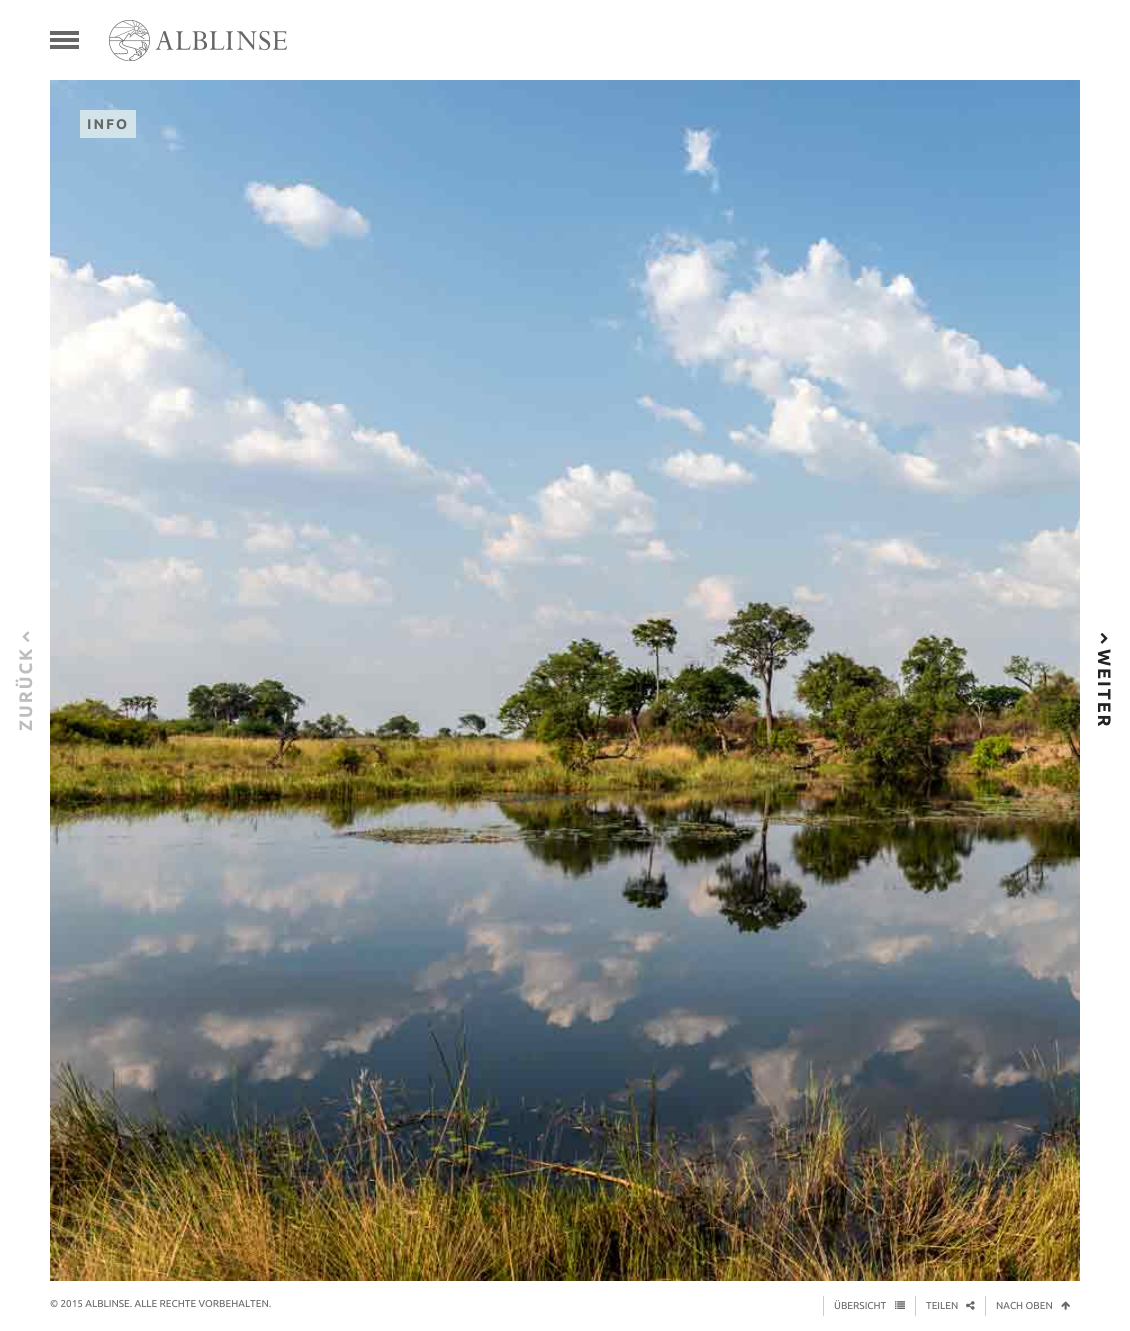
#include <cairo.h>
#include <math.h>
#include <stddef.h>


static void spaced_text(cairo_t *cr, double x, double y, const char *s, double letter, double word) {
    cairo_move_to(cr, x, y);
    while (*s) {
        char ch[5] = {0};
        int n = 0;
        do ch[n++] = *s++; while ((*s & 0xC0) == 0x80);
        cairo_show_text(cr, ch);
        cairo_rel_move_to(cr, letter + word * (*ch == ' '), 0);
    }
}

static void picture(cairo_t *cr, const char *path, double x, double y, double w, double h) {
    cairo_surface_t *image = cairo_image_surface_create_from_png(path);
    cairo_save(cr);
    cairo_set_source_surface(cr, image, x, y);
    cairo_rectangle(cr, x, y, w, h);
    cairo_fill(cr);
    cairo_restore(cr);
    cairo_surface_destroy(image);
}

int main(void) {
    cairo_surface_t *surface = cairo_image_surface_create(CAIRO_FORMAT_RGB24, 1130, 1331);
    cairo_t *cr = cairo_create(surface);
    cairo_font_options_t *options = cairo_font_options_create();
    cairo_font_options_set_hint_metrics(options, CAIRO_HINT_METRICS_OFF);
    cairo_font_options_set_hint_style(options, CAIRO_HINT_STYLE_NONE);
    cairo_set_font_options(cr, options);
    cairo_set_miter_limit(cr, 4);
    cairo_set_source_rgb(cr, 1, 1, 1);
    cairo_paint(cr);
    cairo_set_source_rgb(cr, 0.4, 0.4, 0.4);
    cairo_rectangle(cr, 50, 31, 29, 4);
    cairo_fill(cr);
    cairo_rectangle(cr, 50, 38, 29, 4);
    cairo_fill(cr);
    cairo_rectangle(cr, 50, 45, 29, 4);
    cairo_fill(cr);
    picture(cr, "img1.png", 109, 20, 178, 41);
    picture(cr, "img3.png", 50, 80, 1030, 1201);
    cairo_set_source_rgb(cr, 0.824, 0.894, 0.914);
    cairo_rectangle(cr, 80, 110, 56, 28);
    cairo_fill(cr);
    cairo_select_font_face(cr, "Ubuntu", CAIRO_FONT_SLANT_NORMAL, CAIRO_FONT_WEIGHT_BOLD);
    cairo_set_font_size(cr, 14);
    cairo_set_source_rgb(cr, 0.4, 0.4, 0.4);
    spaced_text(cr, 87, 129, "INFO", 2, 0);
    picture(cr, "img2.png", 22, 631, 8, 11);
    cairo_set_font_size(cr, 18);
    cairo_set_source_rgb(cr, 0.741, 0.741, 0.741);
    cairo_save(cr);
    cairo_translate(cr, 32, 731);
    cairo_rotate(cr, -90 * M_PI / 180);
    spaced_text(cr, 0, 0, "ZURÜCK", 2, 0);
    cairo_restore(cr);
    picture(cr, "img4.png", 1100, 633, 8, 11);
    cairo_set_source_rgb(cr, 0.133, 0.133, 0.133);
    cairo_save(cr);
    cairo_translate(cr, 1098, 649);
    cairo_rotate(cr, 90 * M_PI / 180);
    spaced_text(cr, 0, 0, "WEITER", 2, 0);
    cairo_restore(cr);
    cairo_select_font_face(cr, "Ubuntu", CAIRO_FONT_SLANT_NORMAL, CAIRO_FONT_WEIGHT_NORMAL);
    cairo_set_font_size(cr, 10);
    cairo_set_source_rgb(cr, 0.4, 0.4, 0.4);
    cairo_move_to(cr, 50, 1307);
    cairo_show_text(cr, "© 2015 ALBLINSE. ALLE RECHTE VORBEHALTEN.");
    cairo_set_source_rgb(cr, 0.8, 0.8, 0.8);
    cairo_rectangle(cr, 823, 1296, 1, 20);
    cairo_fill(cr);
    cairo_set_source_rgb(cr, 0.4, 0.4, 0.4);
    cairo_move_to(cr, 834, 1309);
    cairo_show_text(cr, "ÜBERSICHT");
    picture(cr, "img5.png", 895, 1301, 10, 8);
    cairo_set_source_rgb(cr, 0.8, 0.8, 0.8);
    cairo_rectangle(cr, 915, 1296, 1, 20);
    cairo_fill(cr);
    cairo_set_source_rgb(cr, 0.4, 0.4, 0.4);
    cairo_move_to(cr, 926, 1309);
    cairo_show_text(cr, "TEILEN");
    picture(cr, "img6.png", 966, 1301, 9, 9);
    cairo_set_source_rgb(cr, 0.8, 0.8, 0.8);
    cairo_rectangle(cr, 985, 1296, 1, 20);
    cairo_fill(cr);
    cairo_set_source_rgb(cr, 0.4, 0.4, 0.4);
    cairo_move_to(cr, 996, 1309);
    cairo_show_text(cr, "NACH OBEN");
    picture(cr, "img7.png", 1061, 1301, 9, 9);
    cairo_surface_write_to_png(surface, "page.png");
    cairo_font_options_destroy(options);
    cairo_destroy(cr);
    cairo_surface_destroy(surface);
    return 0;
}
